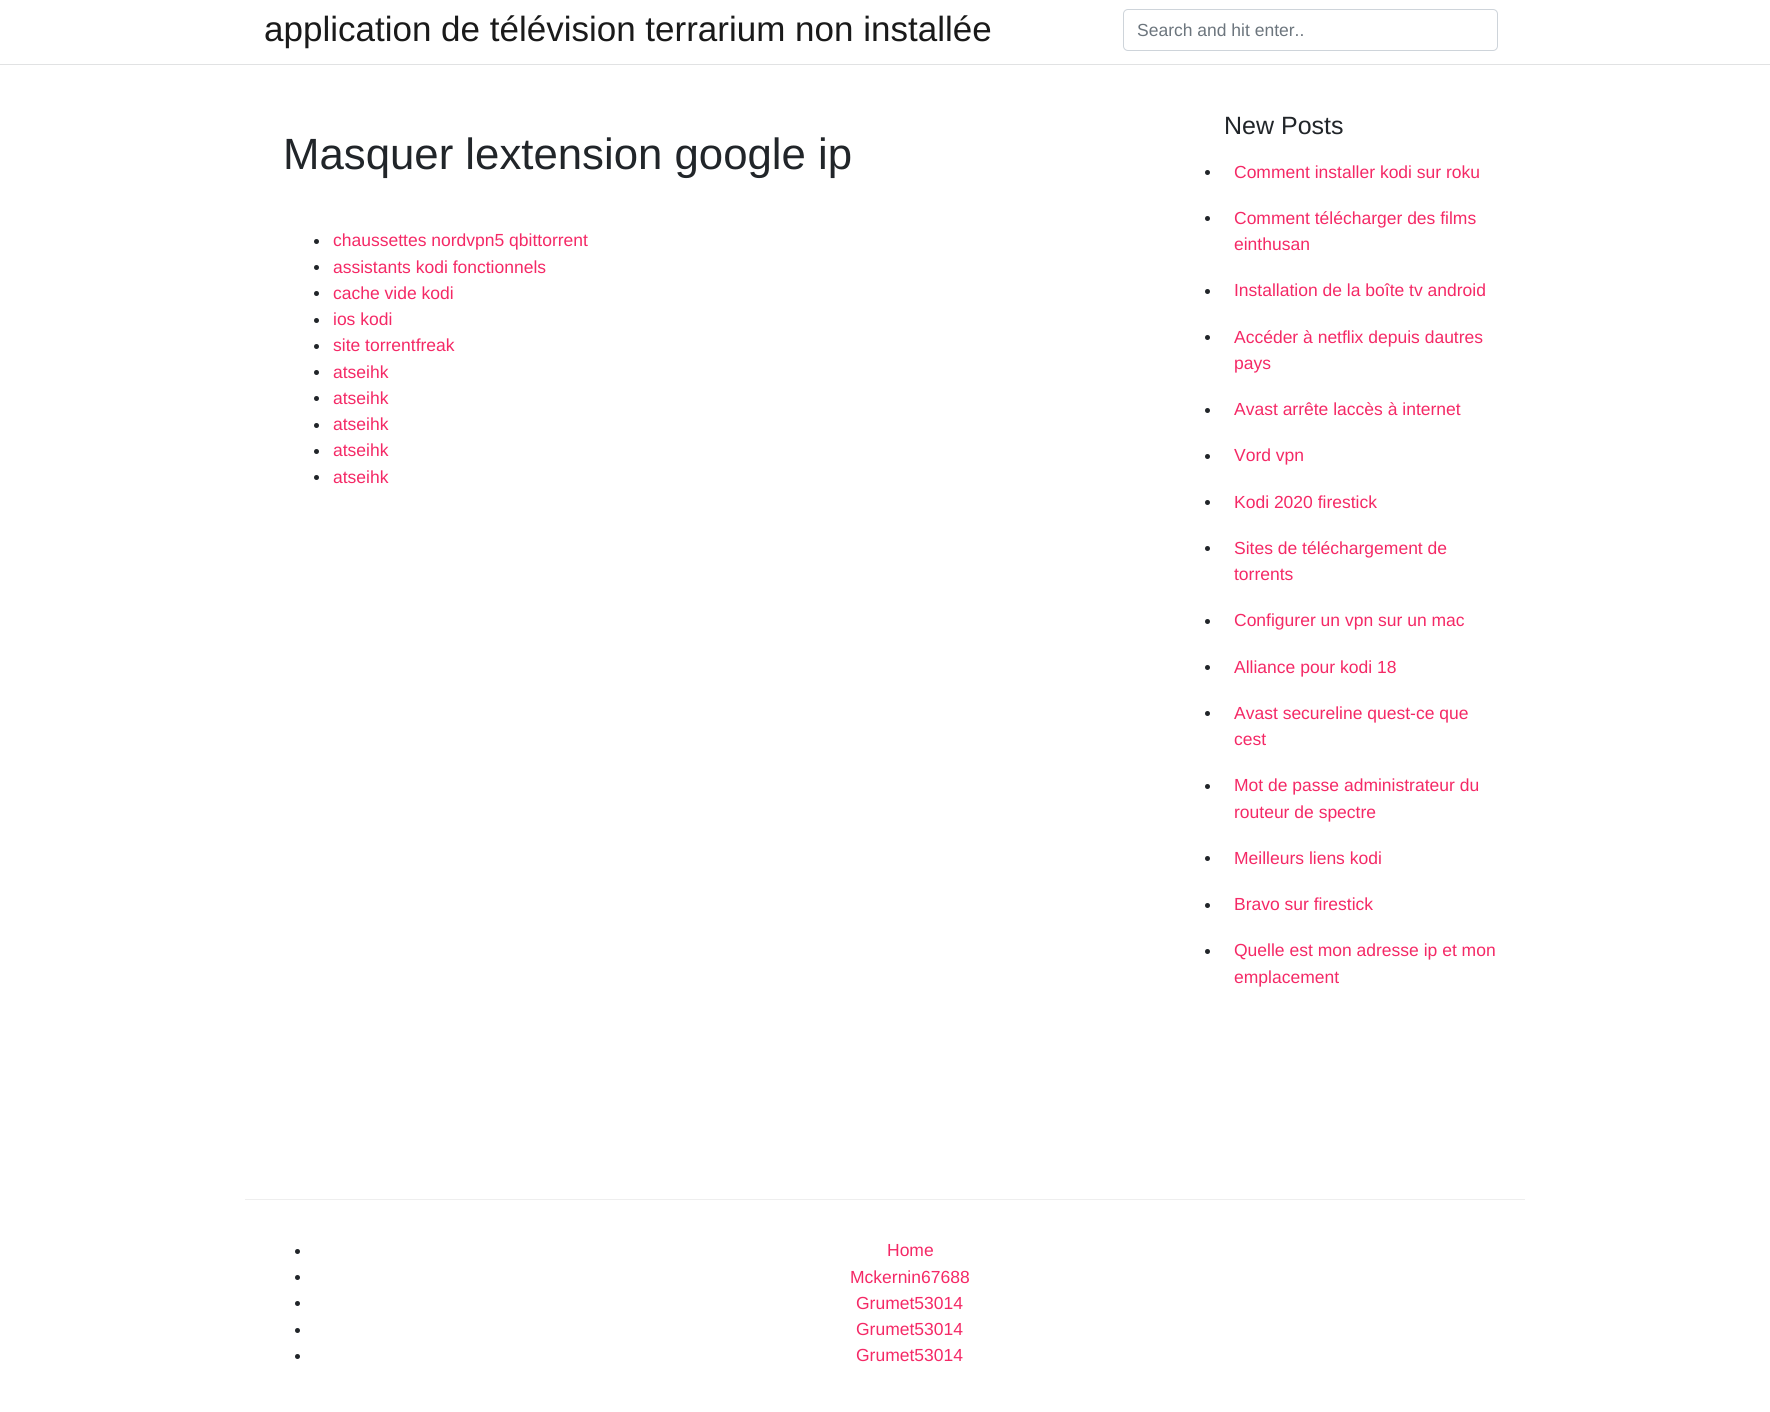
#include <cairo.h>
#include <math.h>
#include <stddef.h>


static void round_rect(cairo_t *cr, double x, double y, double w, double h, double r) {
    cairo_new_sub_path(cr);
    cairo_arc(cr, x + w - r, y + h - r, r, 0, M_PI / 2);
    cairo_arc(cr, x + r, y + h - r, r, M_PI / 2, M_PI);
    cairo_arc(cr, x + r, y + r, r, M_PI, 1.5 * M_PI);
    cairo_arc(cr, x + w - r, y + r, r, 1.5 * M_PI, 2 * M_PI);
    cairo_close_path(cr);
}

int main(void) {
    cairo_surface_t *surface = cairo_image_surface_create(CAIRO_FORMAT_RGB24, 1770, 1412);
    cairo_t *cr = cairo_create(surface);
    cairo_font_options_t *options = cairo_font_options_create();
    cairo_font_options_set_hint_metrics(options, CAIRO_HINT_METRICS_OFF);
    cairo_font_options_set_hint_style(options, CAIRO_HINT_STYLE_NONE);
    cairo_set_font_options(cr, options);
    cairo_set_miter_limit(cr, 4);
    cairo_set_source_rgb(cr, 1, 1, 1);
    cairo_paint(cr);
    cairo_set_source_rgb(cr, 0.882, 0.886, 0.89);
    cairo_rectangle(cr, 0, 64, 1770, 1);
    cairo_fill(cr);
    cairo_select_font_face(cr, "Liberation Sans", CAIRO_FONT_SLANT_NORMAL, CAIRO_FONT_WEIGHT_NORMAL);
    cairo_set_font_size(cr, 35);
    cairo_set_source_rgb(cr, 0.102, 0.102, 0.102);
    cairo_move_to(cr, 264, 41);
    cairo_show_text(cr, "application de télévision terrarium non installée");
    round_rect(cr, 1123.5, 9.5, 374, 41, 4.5);
    cairo_set_source_rgb(cr, 0.808, 0.831, 0.855);
    cairo_set_line_width(cr, 1);
    cairo_stroke(cr);
    cairo_set_font_size(cr, 17.5);
    cairo_set_source_rgb(cr, 0.424, 0.459, 0.49);
    cairo_move_to(cr, 1137, 36);
    cairo_show_text(cr, "Search and hit enter..");
    cairo_set_font_size(cr, 43.75);
    cairo_set_source_rgb(cr, 0.129, 0.145, 0.161);
    cairo_move_to(cr, 283, 169);
    cairo_show_text(cr, "Masquer lextension google ip");
    cairo_new_path(cr);
    cairo_arc(cr, 316.5, 241.5, 2.5, 0, 2 * M_PI);
    cairo_fill(cr);
    cairo_set_font_size(cr, 17.5);
    cairo_set_source_rgb(cr, 0.957, 0.161, 0.4);
    cairo_move_to(cr, 333, 246);
    cairo_show_text(cr, "chaussettes nordvpn5 qbittorrent");
    cairo_set_source_rgb(cr, 0.129, 0.145, 0.161);
    cairo_new_path(cr);
    cairo_arc(cr, 316.5, 267.5, 2.5, 0, 2 * M_PI);
    cairo_fill(cr);
    cairo_set_source_rgb(cr, 0.957, 0.161, 0.4);
    cairo_move_to(cr, 333, 273);
    cairo_show_text(cr, "assistants kodi fonctionnels");
    cairo_set_source_rgb(cr, 0.129, 0.145, 0.161);
    cairo_new_path(cr);
    cairo_arc(cr, 316.5, 293.5, 2.5, 0, 2 * M_PI);
    cairo_fill(cr);
    cairo_set_source_rgb(cr, 0.957, 0.161, 0.4);
    cairo_move_to(cr, 333, 299);
    cairo_show_text(cr, "cache vide kodi");
    cairo_set_source_rgb(cr, 0.129, 0.145, 0.161);
    cairo_new_path(cr);
    cairo_arc(cr, 316.5, 320.5, 2.5, 0, 2 * M_PI);
    cairo_fill(cr);
    cairo_set_source_rgb(cr, 0.957, 0.161, 0.4);
    cairo_move_to(cr, 333, 325);
    cairo_show_text(cr, "ios kodi");
    cairo_set_source_rgb(cr, 0.129, 0.145, 0.161);
    cairo_new_path(cr);
    cairo_arc(cr, 316.5, 346.5, 2.5, 0, 2 * M_PI);
    cairo_fill(cr);
    cairo_set_source_rgb(cr, 0.957, 0.161, 0.4);
    cairo_move_to(cr, 333, 351);
    cairo_show_text(cr, "site torrentfreak");
    cairo_set_source_rgb(cr, 0.129, 0.145, 0.161);
    cairo_new_path(cr);
    cairo_arc(cr, 316.5, 372.5, 2.5, 0, 2 * M_PI);
    cairo_fill(cr);
    cairo_set_source_rgb(cr, 0.957, 0.161, 0.4);
    cairo_move_to(cr, 333, 378);
    cairo_show_text(cr, "atseihk");
    cairo_set_source_rgb(cr, 0.129, 0.145, 0.161);
    cairo_new_path(cr);
    cairo_arc(cr, 316.5, 398.5, 2.5, 0, 2 * M_PI);
    cairo_fill(cr);
    cairo_set_source_rgb(cr, 0.957, 0.161, 0.4);
    cairo_move_to(cr, 333, 404);
    cairo_show_text(cr, "atseihk");
    cairo_set_source_rgb(cr, 0.129, 0.145, 0.161);
    cairo_new_path(cr);
    cairo_arc(cr, 316.5, 425.5, 2.5, 0, 2 * M_PI);
    cairo_fill(cr);
    cairo_set_source_rgb(cr, 0.957, 0.161, 0.4);
    cairo_move_to(cr, 333, 430);
    cairo_show_text(cr, "atseihk");
    cairo_set_source_rgb(cr, 0.129, 0.145, 0.161);
    cairo_new_path(cr);
    cairo_arc(cr, 316.5, 451.5, 2.5, 0, 2 * M_PI);
    cairo_fill(cr);
    cairo_set_source_rgb(cr, 0.957, 0.161, 0.4);
    cairo_move_to(cr, 333, 456);
    cairo_show_text(cr, "atseihk");
    cairo_set_source_rgb(cr, 0.129, 0.145, 0.161);
    cairo_new_path(cr);
    cairo_arc(cr, 316.5, 477.5, 2.5, 0, 2 * M_PI);
    cairo_fill(cr);
    cairo_set_source_rgb(cr, 0.957, 0.161, 0.4);
    cairo_move_to(cr, 333, 483);
    cairo_show_text(cr, "atseihk");
    cairo_set_font_size(cr, 25);
    cairo_set_source_rgb(cr, 0.129, 0.145, 0.161);
    cairo_move_to(cr, 1224, 134);
    cairo_show_text(cr, "New Posts");
    cairo_new_path(cr);
    cairo_arc(cr, 1207.5, 172.5, 2.5, 0, 2 * M_PI);
    cairo_fill(cr);
    cairo_set_font_size(cr, 17.5);
    cairo_set_source_rgb(cr, 0.957, 0.161, 0.4);
    cairo_move_to(cr, 1234, 178);
    cairo_show_text(cr, "Comment installer kodi sur roku");
    cairo_set_source_rgb(cr, 0.129, 0.145, 0.161);
    cairo_new_path(cr);
    cairo_arc(cr, 1207.5, 218.5, 2.5, 0, 2 * M_PI);
    cairo_fill(cr);
    cairo_set_source_rgb(cr, 0.957, 0.161, 0.4);
    cairo_move_to(cr, 1234, 224);
    cairo_show_text(cr, "Comment télécharger des films");
    cairo_move_to(cr, 1234, 250);
    cairo_show_text(cr, "einthusan");
    cairo_set_source_rgb(cr, 0.129, 0.145, 0.161);
    cairo_new_path(cr);
    cairo_arc(cr, 1207.5, 291.5, 2.5, 0, 2 * M_PI);
    cairo_fill(cr);
    cairo_set_source_rgb(cr, 0.957, 0.161, 0.4);
    cairo_move_to(cr, 1234, 296);
    cairo_show_text(cr, "Installation de la boîte tv android");
    cairo_set_source_rgb(cr, 0.129, 0.145, 0.161);
    cairo_new_path(cr);
    cairo_arc(cr, 1207.5, 337.5, 2.5, 0, 2 * M_PI);
    cairo_fill(cr);
    cairo_set_source_rgb(cr, 0.957, 0.161, 0.4);
    cairo_move_to(cr, 1234, 343);
    cairo_show_text(cr, "Accéder à netflix depuis dautres");
    cairo_move_to(cr, 1234, 369);
    cairo_show_text(cr, "pays");
    cairo_set_source_rgb(cr, 0.129, 0.145, 0.161);
    cairo_new_path(cr);
    cairo_arc(cr, 1207.5, 410.5, 2.5, 0, 2 * M_PI);
    cairo_fill(cr);
    cairo_set_source_rgb(cr, 0.957, 0.161, 0.4);
    cairo_move_to(cr, 1234, 415);
    cairo_show_text(cr, "Avast arrête laccès à internet");
    cairo_set_source_rgb(cr, 0.129, 0.145, 0.161);
    cairo_new_path(cr);
    cairo_arc(cr, 1207.5, 456.5, 2.5, 0, 2 * M_PI);
    cairo_fill(cr);
    cairo_set_source_rgb(cr, 0.957, 0.161, 0.4);
    cairo_move_to(cr, 1234, 461);
    cairo_show_text(cr, "Vord vpn");
    cairo_set_source_rgb(cr, 0.129, 0.145, 0.161);
    cairo_new_path(cr);
    cairo_arc(cr, 1207.5, 502.5, 2.5, 0, 2 * M_PI);
    cairo_fill(cr);
    cairo_set_source_rgb(cr, 0.957, 0.161, 0.4);
    cairo_move_to(cr, 1234, 508);
    cairo_show_text(cr, "Kodi 2020 firestick");
    cairo_set_source_rgb(cr, 0.129, 0.145, 0.161);
    cairo_new_path(cr);
    cairo_arc(cr, 1207.5, 548.5, 2.5, 0, 2 * M_PI);
    cairo_fill(cr);
    cairo_set_source_rgb(cr, 0.957, 0.161, 0.4);
    cairo_move_to(cr, 1234, 554);
    cairo_show_text(cr, "Sites de téléchargement de");
    cairo_move_to(cr, 1234, 580);
    cairo_show_text(cr, "torrents");
    cairo_set_source_rgb(cr, 0.129, 0.145, 0.161);
    cairo_new_path(cr);
    cairo_arc(cr, 1207.5, 621.5, 2.5, 0, 2 * M_PI);
    cairo_fill(cr);
    cairo_set_source_rgb(cr, 0.957, 0.161, 0.4);
    cairo_move_to(cr, 1234, 626);
    cairo_show_text(cr, "Configurer un vpn sur un mac");
    cairo_set_source_rgb(cr, 0.129, 0.145, 0.161);
    cairo_new_path(cr);
    cairo_arc(cr, 1207.5, 667.5, 2.5, 0, 2 * M_PI);
    cairo_fill(cr);
    cairo_set_source_rgb(cr, 0.957, 0.161, 0.4);
    cairo_move_to(cr, 1234, 673);
    cairo_show_text(cr, "Alliance pour kodi 18");
    cairo_set_source_rgb(cr, 0.129, 0.145, 0.161);
    cairo_new_path(cr);
    cairo_arc(cr, 1207.5, 713.5, 2.5, 0, 2 * M_PI);
    cairo_fill(cr);
    cairo_set_source_rgb(cr, 0.957, 0.161, 0.4);
    cairo_move_to(cr, 1234, 719);
    cairo_show_text(cr, "Avast secureline quest-ce que");
    cairo_move_to(cr, 1234, 745);
    cairo_show_text(cr, "cest");
    cairo_set_source_rgb(cr, 0.129, 0.145, 0.161);
    cairo_new_path(cr);
    cairo_arc(cr, 1207.5, 786.5, 2.5, 0, 2 * M_PI);
    cairo_fill(cr);
    cairo_set_source_rgb(cr, 0.957, 0.161, 0.4);
    cairo_move_to(cr, 1234, 791);
    cairo_show_text(cr, "Mot de passe administrateur du");
    cairo_move_to(cr, 1234, 818);
    cairo_show_text(cr, "routeur de spectre");
    cairo_set_source_rgb(cr, 0.129, 0.145, 0.161);
    cairo_new_path(cr);
    cairo_arc(cr, 1207.5, 858.5, 2.5, 0, 2 * M_PI);
    cairo_fill(cr);
    cairo_set_source_rgb(cr, 0.957, 0.161, 0.4);
    cairo_move_to(cr, 1234, 864);
    cairo_show_text(cr, "Meilleurs liens kodi");
    cairo_set_source_rgb(cr, 0.129, 0.145, 0.161);
    cairo_new_path(cr);
    cairo_arc(cr, 1207.5, 905.5, 2.5, 0, 2 * M_PI);
    cairo_fill(cr);
    cairo_set_source_rgb(cr, 0.957, 0.161, 0.4);
    cairo_move_to(cr, 1234, 910);
    cairo_show_text(cr, "Bravo sur firestick");
    cairo_set_source_rgb(cr, 0.129, 0.145, 0.161);
    cairo_new_path(cr);
    cairo_arc(cr, 1207.5, 951.5, 2.5, 0, 2 * M_PI);
    cairo_fill(cr);
    cairo_set_source_rgb(cr, 0.957, 0.161, 0.4);
    cairo_move_to(cr, 1234, 956);
    cairo_show_text(cr, "Quelle est mon adresse ip et mon");
    cairo_move_to(cr, 1234, 983);
    cairo_show_text(cr, "emplacement");
    cairo_set_source_rgb(cr, 0.933, 0.933, 0.933);
    cairo_rectangle(cr, 245, 1199, 1280, 1);
    cairo_fill(cr);
    cairo_set_source_rgb(cr, 0.129, 0.145, 0.161);
    cairo_arc(cr, 297.5, 1251.5, 2.5, 0, 2 * M_PI);
    cairo_fill(cr);
    cairo_set_source_rgb(cr, 0.957, 0.161, 0.4);
    cairo_move_to(cr, 887, 1256);
    cairo_show_text(cr, "Home");
    cairo_set_source_rgb(cr, 0.129, 0.145, 0.161);
    cairo_new_path(cr);
    cairo_arc(cr, 297.5, 1277.5, 2.5, 0, 2 * M_PI);
    cairo_fill(cr);
    cairo_set_source_rgb(cr, 0.957, 0.161, 0.4);
    cairo_move_to(cr, 850, 1283);
    cairo_show_text(cr, "Mckernin67688");
    cairo_set_source_rgb(cr, 0.129, 0.145, 0.161);
    cairo_new_path(cr);
    cairo_arc(cr, 297.5, 1303.5, 2.5, 0, 2 * M_PI);
    cairo_fill(cr);
    cairo_set_source_rgb(cr, 0.957, 0.161, 0.4);
    cairo_move_to(cr, 856, 1309);
    cairo_show_text(cr, "Grumet53014");
    cairo_set_source_rgb(cr, 0.129, 0.145, 0.161);
    cairo_new_path(cr);
    cairo_arc(cr, 297.5, 1330.5, 2.5, 0, 2 * M_PI);
    cairo_fill(cr);
    cairo_set_source_rgb(cr, 0.957, 0.161, 0.4);
    cairo_move_to(cr, 856, 1335);
    cairo_show_text(cr, "Grumet53014");
    cairo_set_source_rgb(cr, 0.129, 0.145, 0.161);
    cairo_new_path(cr);
    cairo_arc(cr, 297.5, 1356.5, 2.5, 0, 2 * M_PI);
    cairo_fill(cr);
    cairo_set_source_rgb(cr, 0.957, 0.161, 0.4);
    cairo_move_to(cr, 856, 1361);
    cairo_show_text(cr, "Grumet53014");
    cairo_surface_write_to_png(surface, "page.png");
    cairo_font_options_destroy(options);
    cairo_destroy(cr);
    cairo_surface_destroy(surface);
    return 0;
}
